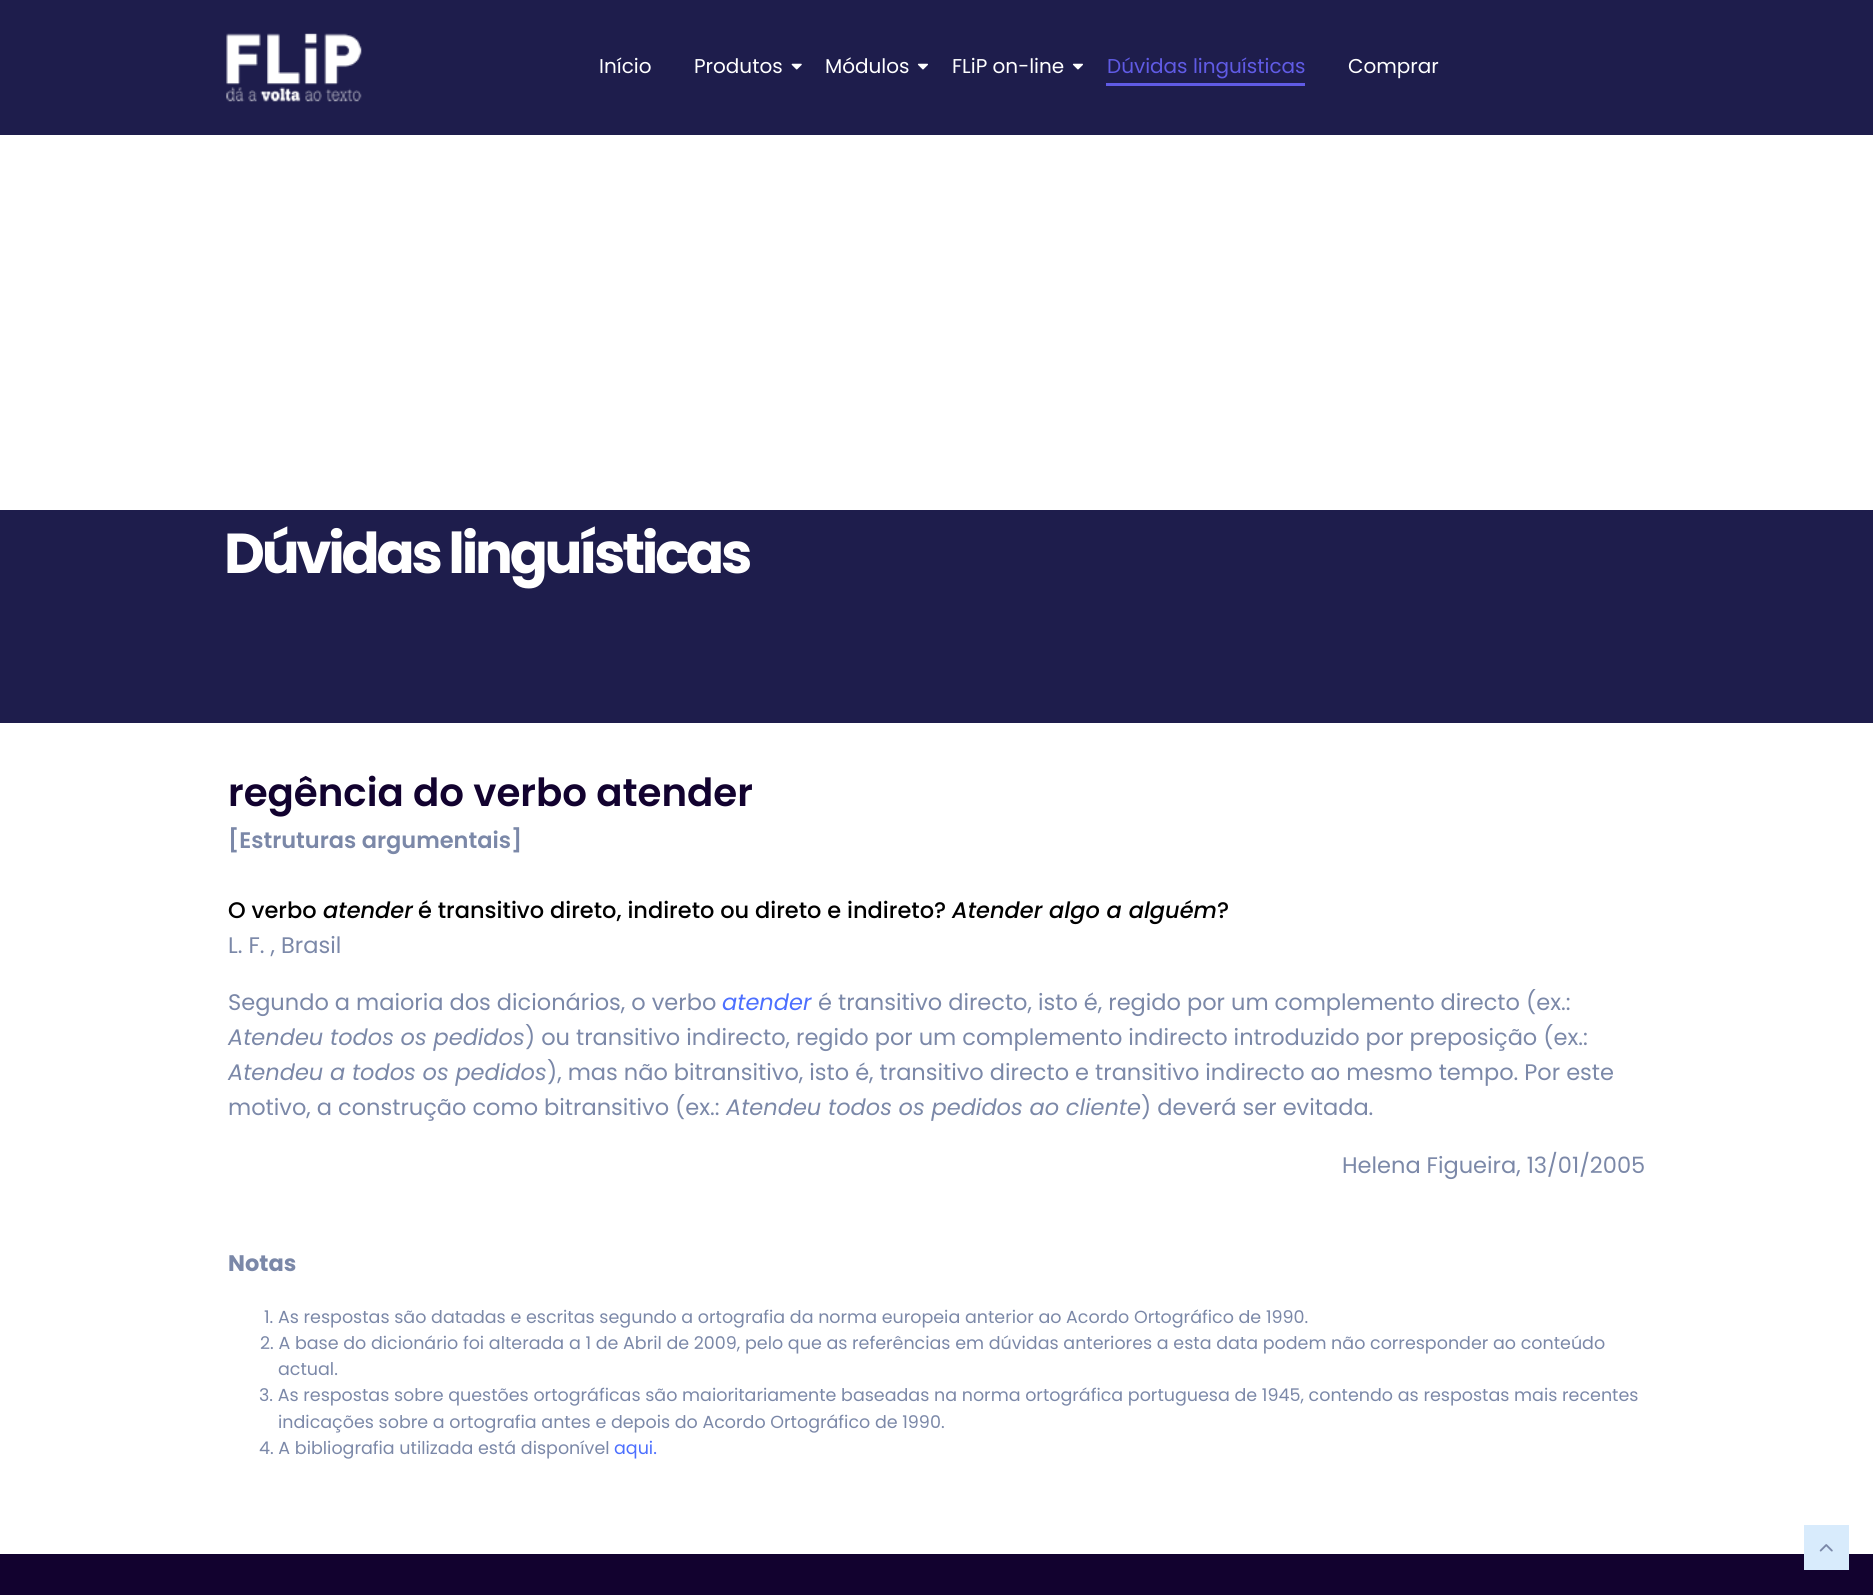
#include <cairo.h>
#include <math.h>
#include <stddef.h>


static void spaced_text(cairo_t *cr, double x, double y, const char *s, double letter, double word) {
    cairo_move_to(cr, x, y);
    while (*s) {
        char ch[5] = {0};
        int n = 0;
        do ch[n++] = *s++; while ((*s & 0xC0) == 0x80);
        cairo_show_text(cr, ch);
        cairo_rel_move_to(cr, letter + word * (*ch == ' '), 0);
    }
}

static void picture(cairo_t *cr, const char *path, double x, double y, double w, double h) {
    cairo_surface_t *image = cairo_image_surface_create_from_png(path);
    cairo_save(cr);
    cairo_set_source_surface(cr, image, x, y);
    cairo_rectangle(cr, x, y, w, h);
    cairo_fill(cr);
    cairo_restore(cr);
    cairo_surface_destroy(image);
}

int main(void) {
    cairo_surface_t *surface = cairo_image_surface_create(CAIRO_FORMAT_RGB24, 1873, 1595);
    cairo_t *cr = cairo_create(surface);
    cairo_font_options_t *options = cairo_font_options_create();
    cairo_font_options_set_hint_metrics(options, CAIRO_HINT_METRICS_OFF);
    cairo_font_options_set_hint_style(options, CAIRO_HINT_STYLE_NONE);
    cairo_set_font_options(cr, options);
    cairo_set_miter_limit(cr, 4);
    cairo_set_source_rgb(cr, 1, 1, 1);
    cairo_paint(cr);
    cairo_set_source_rgb(cr, 0.118, 0.114, 0.298);
    cairo_rectangle(cr, 0, 0, 1873, 135);
    cairo_fill(cr);
    picture(cr, "img1.png", 226, 33, 136, 69);
    cairo_select_font_face(cr, "Poppins", CAIRO_FONT_SLANT_NORMAL, CAIRO_FONT_WEIGHT_NORMAL);
    cairo_set_font_size(cr, 20);
    cairo_set_source_rgb(cr, 1, 1, 1);
    cairo_move_to(cr, 599, 73);
    cairo_show_text(cr, "Início");
    cairo_move_to(cr, 694, 73);
    cairo_show_text(cr, "Produtos");
    picture(cr, "img2.png", 791, 63, 11, 7);
    cairo_move_to(cr, 825, 73);
    cairo_show_text(cr, "Módulos");
    picture(cr, "img3.png", 917, 63, 11, 7);
    cairo_move_to(cr, 952, 73);
    cairo_show_text(cr, "FLiP on-line");
    picture(cr, "img3.png", 1072, 63, 11, 7);
    cairo_set_source_rgb(cr, 0.376, 0.357, 0.898);
    cairo_move_to(cr, 1107, 73);
    cairo_show_text(cr, "Dúvidas linguísticas");
    cairo_rectangle(cr, 1106, 83, 199, 3);
    cairo_fill(cr);
    cairo_set_source_rgb(cr, 1, 1, 1);
    cairo_move_to(cr, 1348, 73);
    cairo_show_text(cr, "Comprar");
    cairo_set_source_rgb(cr, 0.118, 0.114, 0.298);
    cairo_rectangle(cr, 0, 510, 1873, 213);
    cairo_fill(cr);
    cairo_select_font_face(cr, "Poppins", CAIRO_FONT_SLANT_NORMAL, CAIRO_FONT_WEIGHT_BOLD);
    cairo_set_font_size(cr, 56.25);
    cairo_set_source_rgb(cr, 1, 1, 1);
    spaced_text(cr, 224, 573, "Dúvidas linguísticas", -3.25, 0);
    cairo_select_font_face(cr, "Poppins SemiBold", CAIRO_FONT_SLANT_NORMAL, CAIRO_FONT_WEIGHT_NORMAL);
    cairo_set_font_size(cr, 38.75);
    cairo_set_source_rgb(cr, 0.071, 0.008, 0.184);
    cairo_move_to(cr, 228, 806);
    cairo_show_text(cr, "regência do verbo atender");
    cairo_set_font_size(cr, 22.5);
    cairo_set_source_rgb(cr, 0.482, 0.533, 0.659);
    cairo_move_to(cr, 228, 848);
    cairo_show_text(cr, "[Estruturas argumentais]");
    cairo_select_font_face(cr, "Poppins Medium", CAIRO_FONT_SLANT_NORMAL, CAIRO_FONT_WEIGHT_NORMAL);
    cairo_set_source_rgb(cr, 0, 0, 0);
    cairo_move_to(cr, 228, 918);
    cairo_show_text(cr, "O verbo");
    cairo_select_font_face(cr, "Poppins Medium", CAIRO_FONT_SLANT_ITALIC, CAIRO_FONT_WEIGHT_NORMAL);
    cairo_move_to(cr, 323, 918);
    cairo_show_text(cr, "atender");
    cairo_select_font_face(cr, "Poppins Medium", CAIRO_FONT_SLANT_NORMAL, CAIRO_FONT_WEIGHT_NORMAL);
    cairo_move_to(cr, 418, 918);
    cairo_show_text(cr, "é transitivo direto, indireto ou direto e indireto?");
    cairo_select_font_face(cr, "Poppins Medium", CAIRO_FONT_SLANT_ITALIC, CAIRO_FONT_WEIGHT_NORMAL);
    cairo_move_to(cr, 952, 918);
    cairo_show_text(cr, "Atender algo a alguém");
    cairo_select_font_face(cr, "Poppins Medium", CAIRO_FONT_SLANT_NORMAL, CAIRO_FONT_WEIGHT_NORMAL);
    cairo_move_to(cr, 1217, 918);
    cairo_show_text(cr, "?");
    cairo_select_font_face(cr, "Poppins", CAIRO_FONT_SLANT_NORMAL, CAIRO_FONT_WEIGHT_NORMAL);
    cairo_set_source_rgb(cr, 0.482, 0.533, 0.659);
    cairo_move_to(cr, 228, 953);
    cairo_show_text(cr, "L. F. , Brasil");
    cairo_move_to(cr, 228, 1010);
    cairo_show_text(cr, "Segundo a maioria dos dicionários, o verbo");
    cairo_select_font_face(cr, "Poppins", CAIRO_FONT_SLANT_ITALIC, CAIRO_FONT_WEIGHT_NORMAL);
    cairo_set_source_rgb(cr, 0.298, 0.435, 1);
    cairo_move_to(cr, 722, 1010);
    cairo_show_text(cr, "atender");
    cairo_select_font_face(cr, "Poppins", CAIRO_FONT_SLANT_NORMAL, CAIRO_FONT_WEIGHT_NORMAL);
    cairo_set_source_rgb(cr, 0.482, 0.533, 0.659);
    cairo_move_to(cr, 818, 1010);
    cairo_show_text(cr, "é transitivo directo, isto é, regido por um complemento directo (ex.:");
    cairo_select_font_face(cr, "Poppins", CAIRO_FONT_SLANT_ITALIC, CAIRO_FONT_WEIGHT_NORMAL);
    cairo_move_to(cr, 228, 1045);
    cairo_show_text(cr, "Atendeu todos os pedidos");
    cairo_select_font_face(cr, "Poppins", CAIRO_FONT_SLANT_NORMAL, CAIRO_FONT_WEIGHT_NORMAL);
    cairo_move_to(cr, 525, 1045);
    cairo_show_text(cr, ") ou transitivo indirecto, regido por um complemento indirecto introduzido por preposição (ex.:");
    cairo_select_font_face(cr, "Poppins", CAIRO_FONT_SLANT_ITALIC, CAIRO_FONT_WEIGHT_NORMAL);
    cairo_move_to(cr, 228, 1080);
    cairo_show_text(cr, "Atendeu a todos os pedidos");
    cairo_select_font_face(cr, "Poppins", CAIRO_FONT_SLANT_NORMAL, CAIRO_FONT_WEIGHT_NORMAL);
    cairo_move_to(cr, 547, 1080);
    cairo_show_text(cr, "), mas não bitransitivo, isto é, transitivo directo e transitivo indirecto ao mesmo tempo. Por este");
    cairo_move_to(cr, 228, 1115);
    cairo_show_text(cr, "motivo, a construção como bitransitivo (ex.:");
    cairo_select_font_face(cr, "Poppins", CAIRO_FONT_SLANT_ITALIC, CAIRO_FONT_WEIGHT_NORMAL);
    cairo_move_to(cr, 726, 1115);
    cairo_show_text(cr, "Atendeu todos os pedidos ao cliente");
    cairo_select_font_face(cr, "Poppins", CAIRO_FONT_SLANT_NORMAL, CAIRO_FONT_WEIGHT_NORMAL);
    cairo_move_to(cr, 1141, 1115);
    cairo_show_text(cr, ") deverá ser evitada.");
    cairo_move_to(cr, 1342, 1173);
    cairo_show_text(cr, "Helena Figueira, 13/01/2005");
    cairo_select_font_face(cr, "Poppins", CAIRO_FONT_SLANT_NORMAL, CAIRO_FONT_WEIGHT_BOLD);
    cairo_move_to(cr, 228, 1271);
    cairo_show_text(cr, "Notas");
    cairo_select_font_face(cr, "Poppins", CAIRO_FONT_SLANT_NORMAL, CAIRO_FONT_WEIGHT_NORMAL);
    cairo_set_font_size(cr, 17.5);
    cairo_move_to(cr, 264, 1323);
    cairo_show_text(cr, "1. As respostas são datadas e escritas segundo a ortografia da norma europeia anterior ao Acordo Ortográfico de 1990.");
    cairo_move_to(cr, 260, 1349);
    cairo_show_text(cr, "2. A base do dicionário foi alterada a 1 de Abril de 2009, pelo que as referências em dúvidas anteriores a esta data podem não corresponder ao conteúdo");
    cairo_move_to(cr, 278, 1375);
    cairo_show_text(cr, "actual.");
    cairo_move_to(cr, 259, 1401);
    cairo_show_text(cr, "3. As respostas sobre questões ortográficas são maioritariamente baseadas na norma ortográfica portuguesa de 1945, contendo as respostas mais recentes");
    cairo_move_to(cr, 278, 1428);
    cairo_show_text(cr, "indicações sobre a ortografia antes e depois do Acordo Ortográfico de 1990.");
    cairo_move_to(cr, 259, 1454);
    cairo_show_text(cr, "4. A bibliografia utilizada está disponível");
    cairo_set_source_rgb(cr, 0.298, 0.435, 1);
    cairo_move_to(cr, 614, 1454);
    cairo_show_text(cr, "aqui.");
    cairo_set_source_rgb(cr, 0.071, 0.008, 0.184);
    cairo_rectangle(cr, 0, 1554, 1873, 41);
    cairo_fill(cr);
    cairo_set_source_rgb(cr, 0.847, 0.918, 0.988);
    cairo_rectangle(cr, 1804, 1525, 45, 45);
    cairo_fill(cr);
    picture(cr, "img4.png", 1819, 1544, 14, 8);
    cairo_surface_write_to_png(surface, "page.png");
    cairo_font_options_destroy(options);
    cairo_destroy(cr);
    cairo_surface_destroy(surface);
    return 0;
}
